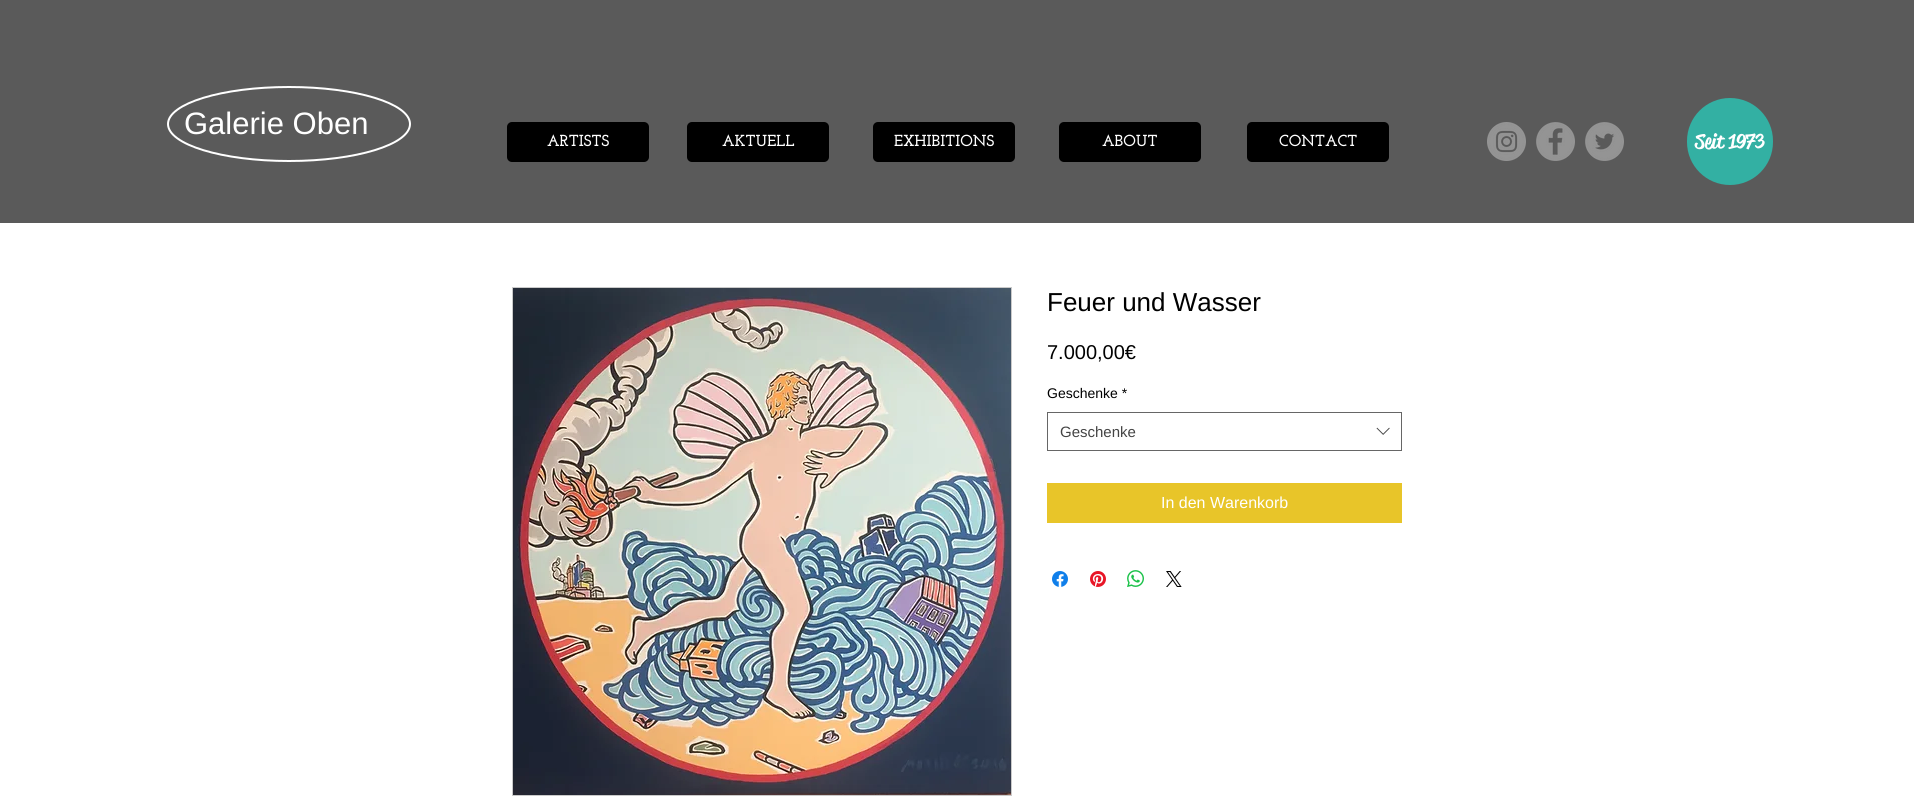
#include <cairo.h>
#include <math.h>
#include <stddef.h>


static void round_rect(cairo_t *cr, double x, double y, double w, double h, double r) {
    cairo_new_sub_path(cr);
    cairo_arc(cr, x + w - r, y + h - r, r, 0, M_PI / 2);
    cairo_arc(cr, x + r, y + h - r, r, M_PI / 2, M_PI);
    cairo_arc(cr, x + r, y + r, r, M_PI, 1.5 * M_PI);
    cairo_arc(cr, x + w - r, y + r, r, 1.5 * M_PI, 2 * M_PI);
    cairo_close_path(cr);
}

static void picture(cairo_t *cr, const char *path, double x, double y, double w, double h) {
    cairo_surface_t *image = cairo_image_surface_create_from_png(path);
    cairo_save(cr);
    cairo_set_source_surface(cr, image, x, y);
    cairo_rectangle(cr, x, y, w, h);
    cairo_fill(cr);
    cairo_restore(cr);
    cairo_surface_destroy(image);
}

int main(void) {
    cairo_surface_t *surface = cairo_image_surface_create(CAIRO_FORMAT_RGB24, 1914, 803);
    cairo_t *cr = cairo_create(surface);
    cairo_font_options_t *options = cairo_font_options_create();
    cairo_font_options_set_hint_metrics(options, CAIRO_HINT_METRICS_OFF);
    cairo_font_options_set_hint_style(options, CAIRO_HINT_STYLE_NONE);
    cairo_set_font_options(cr, options);
    cairo_set_miter_limit(cr, 4);
    cairo_set_source_rgb(cr, 1, 1, 1);
    cairo_paint(cr);
    cairo_set_source_rgb(cr, 0.353, 0.353, 0.353);
    cairo_rectangle(cr, 0, 0, 1914, 223);
    cairo_fill(cr);
    cairo_new_path(cr);
    cairo_move_to(cr, 289, 87);
    cairo_curve_to(cr, 356, 87, 410, 103.5, 410, 124);
    cairo_curve_to(cr, 410, 144.5, 356, 161, 289, 161);
    cairo_curve_to(cr, 222, 161, 168, 144.5, 168, 124);
    cairo_curve_to(cr, 168, 103.5, 222, 87, 289, 87);
    cairo_close_path(cr);
    cairo_set_source_rgb(cr, 1, 1, 1);
    cairo_stroke(cr);
    cairo_select_font_face(cr, "Liberation Sans", CAIRO_FONT_SLANT_NORMAL, CAIRO_FONT_WEIGHT_NORMAL);
    cairo_set_font_size(cr, 31);
    cairo_move_to(cr, 184, 134);
    cairo_show_text(cr, "Galerie Oben");
    cairo_set_source_rgb(cr, 0, 0, 0);
    round_rect(cr, 507, 122, 142, 40, 5);
    cairo_fill(cr);
    cairo_select_font_face(cr, "Josefin Slab", CAIRO_FONT_SLANT_NORMAL, CAIRO_FONT_WEIGHT_BOLD);
    cairo_set_font_size(cr, 16);
    cairo_set_source_rgb(cr, 1, 1, 1);
    cairo_move_to(cr, 547, 146);
    cairo_show_text(cr, "ARTISTS");
    cairo_set_source_rgb(cr, 0, 0, 0);
    round_rect(cr, 687, 122, 142, 40, 5);
    cairo_fill(cr);
    cairo_set_source_rgb(cr, 1, 1, 1);
    cairo_move_to(cr, 722, 146);
    cairo_show_text(cr, "AKTUELL");
    cairo_set_source_rgb(cr, 0, 0, 0);
    round_rect(cr, 873, 122, 142, 40, 5);
    cairo_fill(cr);
    cairo_set_source_rgb(cr, 1, 1, 1);
    cairo_move_to(cr, 894, 146);
    cairo_show_text(cr, "EXHIBITIONS");
    cairo_set_source_rgb(cr, 0, 0, 0);
    round_rect(cr, 1059, 122, 142, 40, 5);
    cairo_fill(cr);
    cairo_set_source_rgb(cr, 1, 1, 1);
    cairo_move_to(cr, 1102, 146);
    cairo_show_text(cr, "ABOUT");
    cairo_set_source_rgb(cr, 0, 0, 0);
    round_rect(cr, 1247, 122, 142, 40, 5);
    cairo_fill(cr);
    cairo_set_source_rgb(cr, 1, 1, 1);
    cairo_move_to(cr, 1279, 146);
    cairo_show_text(cr, "CONTACT");
    picture(cr, "img1.png", 1487, 122, 39, 39);
    picture(cr, "img2.png", 1536, 122, 39, 39);
    picture(cr, "img3.png", 1585, 122, 39, 39);
    cairo_set_source_rgb(cr, 0.2, 0.69, 0.639);
    round_rect(cr, 1687, 98, 86, 87, 43);
    cairo_fill(cr);
    cairo_select_font_face(cr, "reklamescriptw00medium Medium", CAIRO_FONT_SLANT_NORMAL, CAIRO_FONT_WEIGHT_NORMAL);
    cairo_set_font_size(cr, 20);
    cairo_set_source_rgb(cr, 1, 1, 1);
    cairo_move_to(cr, 1695, 148);
    cairo_show_text(cr, "Seit 1973");
    cairo_rectangle(cr, 512.5, 287.5, 499, 508);
    cairo_set_source_rgb(cr, 0.792, 0.792, 0.792);
    cairo_set_line_width(cr, 1);
    cairo_stroke(cr);
    picture(cr, "img4.png", 513, 288, 498, 507);
    cairo_select_font_face(cr, "Liberation Sans", CAIRO_FONT_SLANT_NORMAL, CAIRO_FONT_WEIGHT_NORMAL);
    cairo_set_font_size(cr, 26);
    cairo_set_source_rgb(cr, 0, 0, 0);
    cairo_move_to(cr, 1047, 311);
    cairo_show_text(cr, "Feuer und Wasser");
    cairo_set_font_size(cr, 20);
    cairo_move_to(cr, 1047, 359);
    cairo_show_text(cr, "7.000,00€");
    cairo_set_font_size(cr, 14);
    cairo_move_to(cr, 1047, 398);
    cairo_show_text(cr, "Geschenke *");
    cairo_rectangle(cr, 1047.5, 412.5, 354, 38);
    cairo_set_source_rgb(cr, 0.4, 0.4, 0.4);
    cairo_stroke(cr);
    cairo_set_font_size(cr, 15);
    cairo_set_source_rgb(cr, 0.267, 0.267, 0.267);
    cairo_move_to(cr, 1060, 437);
    cairo_show_text(cr, "Geschenke");
    picture(cr, "img5.png", 1376, 427, 14, 8);
    cairo_set_source_rgb(cr, 0.91, 0.773, 0.161);
    cairo_rectangle(cr, 1047, 483, 355, 40);
    cairo_fill(cr);
    cairo_set_font_size(cr, 16);
    cairo_set_source_rgb(cr, 1, 1, 1);
    cairo_move_to(cr, 1161, 508);
    cairo_show_text(cr, "In den Warenkorb");
    picture(cr, "img6.png", 1052, 571, 16, 16);
    picture(cr, "img7.png", 1090, 571, 16, 16);
    picture(cr, "img8.png", 1127, 570, 17, 17);
    picture(cr, "img9.png", 1166, 571, 16, 16);
    cairo_surface_write_to_png(surface, "page.png");
    cairo_font_options_destroy(options);
    cairo_destroy(cr);
    cairo_surface_destroy(surface);
    return 0;
}
